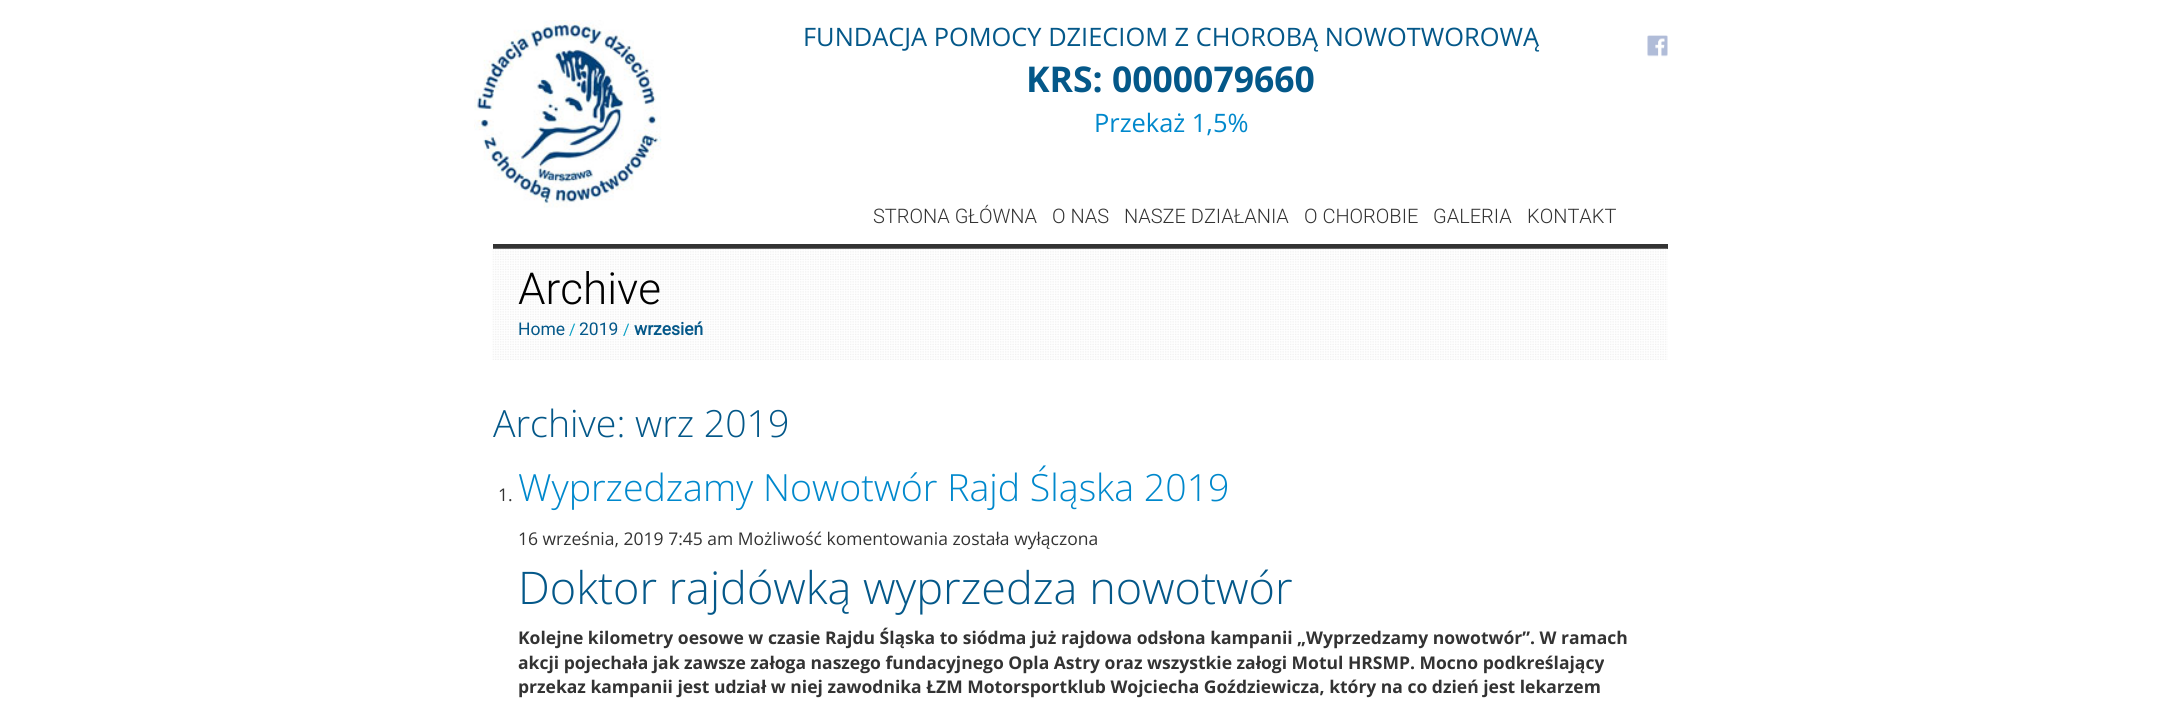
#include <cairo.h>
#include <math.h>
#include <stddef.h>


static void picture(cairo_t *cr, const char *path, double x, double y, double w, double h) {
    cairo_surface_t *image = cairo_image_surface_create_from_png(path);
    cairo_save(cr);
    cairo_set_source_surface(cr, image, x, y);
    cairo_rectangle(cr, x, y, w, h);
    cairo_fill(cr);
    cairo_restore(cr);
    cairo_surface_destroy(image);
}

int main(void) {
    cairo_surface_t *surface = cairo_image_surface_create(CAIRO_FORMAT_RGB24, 2160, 710);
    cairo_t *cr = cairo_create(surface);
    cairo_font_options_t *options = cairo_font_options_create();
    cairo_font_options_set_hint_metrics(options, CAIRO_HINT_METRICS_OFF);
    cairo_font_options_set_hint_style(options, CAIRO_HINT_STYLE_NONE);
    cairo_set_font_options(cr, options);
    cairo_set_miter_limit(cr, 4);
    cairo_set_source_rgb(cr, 1, 1, 1);
    cairo_paint(cr);
    picture(cr, "img1.png", 474, 20, 188, 188);
    cairo_select_font_face(cr, "Open Sans", CAIRO_FONT_SLANT_NORMAL, CAIRO_FONT_WEIGHT_NORMAL);
    cairo_set_font_size(cr, 25.4);
    cairo_set_source_rgb(cr, 0.016, 0.345, 0.537);
    cairo_move_to(cr, 803, 46);
    cairo_show_text(cr, "FUNDACJA POMOCY DZIECIOM Z CHOROBĄ NOWOTWOROWĄ");
    cairo_select_font_face(cr, "Open Sans", CAIRO_FONT_SLANT_NORMAL, CAIRO_FONT_WEIGHT_BOLD);
    cairo_set_font_size(cr, 35.5);
    cairo_move_to(cr, 1026, 92);
    cairo_show_text(cr, "KRS: 0000079660");
    cairo_select_font_face(cr, "Open Sans", CAIRO_FONT_SLANT_NORMAL, CAIRO_FONT_WEIGHT_NORMAL);
    cairo_set_font_size(cr, 25.4);
    cairo_set_source_rgb(cr, 0, 0.533, 0.8);
    cairo_move_to(cr, 1094, 132);
    cairo_show_text(cr, "Przekaż 1,5%");
    cairo_select_font_face(cr, "Roboto Light", CAIRO_FONT_SLANT_NORMAL, CAIRO_FONT_WEIGHT_NORMAL);
    cairo_set_font_size(cr, 20);
    cairo_set_source_rgb(cr, 0.2, 0.2, 0.2);
    cairo_move_to(cr, 873, 223);
    cairo_show_text(cr, "STRONA GŁÓWNA");
    cairo_move_to(cr, 1052, 223);
    cairo_show_text(cr, "O NAS");
    cairo_move_to(cr, 1124, 223);
    cairo_show_text(cr, "NASZE DZIAŁANIA");
    cairo_move_to(cr, 1304, 223);
    cairo_show_text(cr, "O CHOROBIE");
    cairo_move_to(cr, 1433, 223);
    cairo_show_text(cr, "GALERIA");
    cairo_move_to(cr, 1527, 223);
    cairo_show_text(cr, "KONTAKT");
    picture(cr, "img2.png", 1647, 35, 21, 22);
    cairo_rectangle(cr, 493, 244, 1175, 5);
    cairo_fill(cr);
    picture(cr, "img3.png", 492, 248, 1176, 112);
    cairo_set_font_size(cr, 44);
    cairo_set_source_rgb(cr, 0, 0, 0);
    cairo_move_to(cr, 518, 304);
    cairo_show_text(cr, "Archive");
    cairo_select_font_face(cr, "Roboto", CAIRO_FONT_SLANT_NORMAL, CAIRO_FONT_WEIGHT_NORMAL);
    cairo_set_font_size(cr, 17.5);
    cairo_set_source_rgb(cr, 0.016, 0.345, 0.537);
    cairo_move_to(cr, 518, 335);
    cairo_show_text(cr, "Home");
    cairo_set_font_size(cr, 16);
    cairo_set_source_rgb(cr, 0.031, 0.624, 0.769);
    cairo_move_to(cr, 569, 335);
    cairo_show_text(cr, "/");
    cairo_set_font_size(cr, 17.5);
    cairo_set_source_rgb(cr, 0.016, 0.345, 0.537);
    cairo_move_to(cr, 579, 335);
    cairo_show_text(cr, "2019");
    cairo_set_font_size(cr, 16);
    cairo_set_source_rgb(cr, 0.031, 0.624, 0.769);
    cairo_move_to(cr, 623, 335);
    cairo_show_text(cr, "/");
    cairo_select_font_face(cr, "Roboto", CAIRO_FONT_SLANT_NORMAL, CAIRO_FONT_WEIGHT_BOLD);
    cairo_set_font_size(cr, 17.5);
    cairo_set_source_rgb(cr, 0.016, 0.345, 0.537);
    cairo_move_to(cr, 634, 335);
    cairo_show_text(cr, "wrzesień");
    cairo_select_font_face(cr, "Open Sans Light", CAIRO_FONT_SLANT_NORMAL, CAIRO_FONT_WEIGHT_NORMAL);
    cairo_set_font_size(cr, 37.5);
    cairo_move_to(cr, 493, 437);
    cairo_show_text(cr, "Archive: wrz 2019");
    cairo_select_font_face(cr, "Open Sans", CAIRO_FONT_SLANT_NORMAL, CAIRO_FONT_WEIGHT_NORMAL);
    cairo_set_font_size(cr, 17.5);
    cairo_set_source_rgb(cr, 0.2, 0.2, 0.2);
    cairo_move_to(cr, 498, 501);
    cairo_show_text(cr, "1.");
    cairo_select_font_face(cr, "Open Sans Light", CAIRO_FONT_SLANT_NORMAL, CAIRO_FONT_WEIGHT_NORMAL);
    cairo_set_font_size(cr, 37.5);
    cairo_set_source_rgb(cr, 0, 0.533, 0.8);
    cairo_move_to(cr, 518, 501);
    cairo_show_text(cr, "Wyprzedzamy Nowotwór Rajd Śląska 2019");
    cairo_select_font_face(cr, "Open Sans", CAIRO_FONT_SLANT_NORMAL, CAIRO_FONT_WEIGHT_NORMAL);
    cairo_set_font_size(cr, 17.5);
    cairo_set_source_rgb(cr, 0.2, 0.2, 0.2);
    cairo_move_to(cr, 518, 545);
    cairo_show_text(cr, "16 września, 2019 7:45 am Możliwość komentowania została wyłączona");
    cairo_select_font_face(cr, "Open Sans Light", CAIRO_FONT_SLANT_NORMAL, CAIRO_FONT_WEIGHT_NORMAL);
    cairo_set_font_size(cr, 45);
    cairo_set_source_rgb(cr, 0.016, 0.345, 0.537);
    cairo_move_to(cr, 518, 604);
    cairo_show_text(cr, "Doktor rajdówką wyprzedza nowotwór");
    cairo_select_font_face(cr, "Open Sans", CAIRO_FONT_SLANT_NORMAL, CAIRO_FONT_WEIGHT_BOLD);
    cairo_set_font_size(cr, 17.5);
    cairo_set_source_rgb(cr, 0.2, 0.2, 0.2);
    cairo_move_to(cr, 518, 644);
    cairo_show_text(cr, "Kolejne kilometry oesowe w czasie Rajdu Śląska to siódma już rajdowa odsłona kampanii „Wyprzedzamy nowotwór”. W ramach");
    cairo_move_to(cr, 518, 669);
    cairo_show_text(cr, "akcji pojechała jak zawsze załoga naszego fundacyjnego Opla Astry oraz wszystkie załogi Motul HRSMP. Mocno podkreślający");
    cairo_move_to(cr, 518, 693);
    cairo_show_text(cr, "przekaz kampanii jest udział w niej zawodnika ŁZM Motorsportklub Wojciecha Goździewicza, który na co dzień jest lekarzem");
    cairo_surface_write_to_png(surface, "page.png");
    cairo_font_options_destroy(options);
    cairo_destroy(cr);
    cairo_surface_destroy(surface);
    return 0;
}
